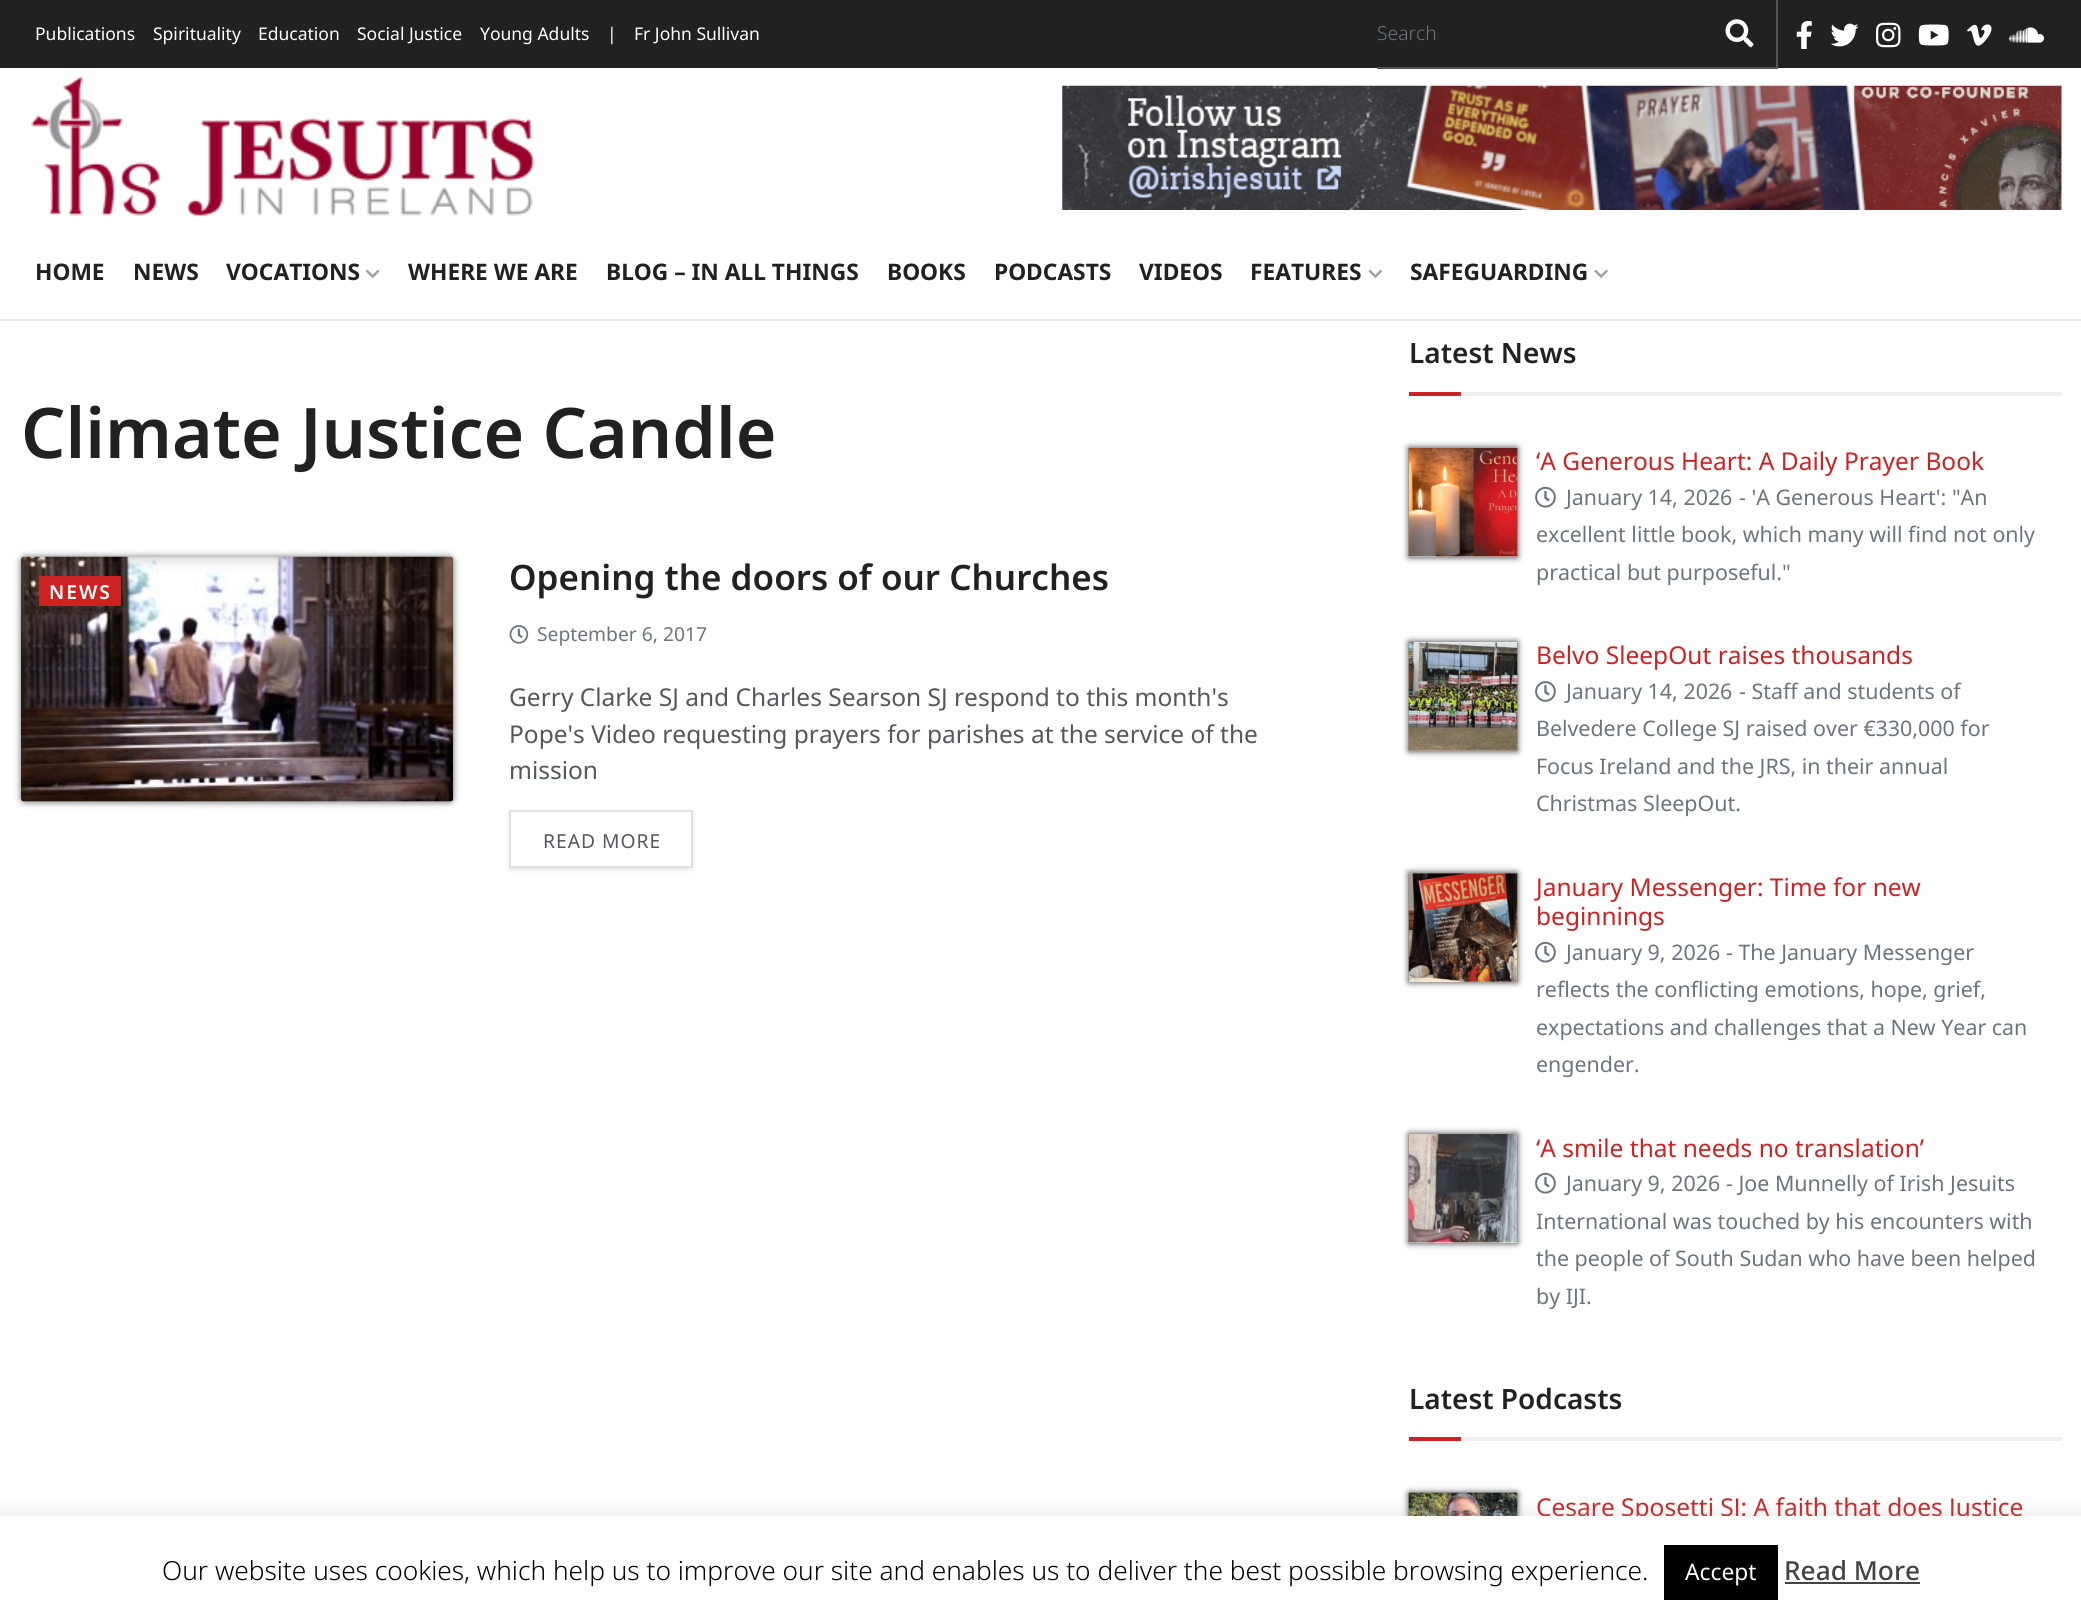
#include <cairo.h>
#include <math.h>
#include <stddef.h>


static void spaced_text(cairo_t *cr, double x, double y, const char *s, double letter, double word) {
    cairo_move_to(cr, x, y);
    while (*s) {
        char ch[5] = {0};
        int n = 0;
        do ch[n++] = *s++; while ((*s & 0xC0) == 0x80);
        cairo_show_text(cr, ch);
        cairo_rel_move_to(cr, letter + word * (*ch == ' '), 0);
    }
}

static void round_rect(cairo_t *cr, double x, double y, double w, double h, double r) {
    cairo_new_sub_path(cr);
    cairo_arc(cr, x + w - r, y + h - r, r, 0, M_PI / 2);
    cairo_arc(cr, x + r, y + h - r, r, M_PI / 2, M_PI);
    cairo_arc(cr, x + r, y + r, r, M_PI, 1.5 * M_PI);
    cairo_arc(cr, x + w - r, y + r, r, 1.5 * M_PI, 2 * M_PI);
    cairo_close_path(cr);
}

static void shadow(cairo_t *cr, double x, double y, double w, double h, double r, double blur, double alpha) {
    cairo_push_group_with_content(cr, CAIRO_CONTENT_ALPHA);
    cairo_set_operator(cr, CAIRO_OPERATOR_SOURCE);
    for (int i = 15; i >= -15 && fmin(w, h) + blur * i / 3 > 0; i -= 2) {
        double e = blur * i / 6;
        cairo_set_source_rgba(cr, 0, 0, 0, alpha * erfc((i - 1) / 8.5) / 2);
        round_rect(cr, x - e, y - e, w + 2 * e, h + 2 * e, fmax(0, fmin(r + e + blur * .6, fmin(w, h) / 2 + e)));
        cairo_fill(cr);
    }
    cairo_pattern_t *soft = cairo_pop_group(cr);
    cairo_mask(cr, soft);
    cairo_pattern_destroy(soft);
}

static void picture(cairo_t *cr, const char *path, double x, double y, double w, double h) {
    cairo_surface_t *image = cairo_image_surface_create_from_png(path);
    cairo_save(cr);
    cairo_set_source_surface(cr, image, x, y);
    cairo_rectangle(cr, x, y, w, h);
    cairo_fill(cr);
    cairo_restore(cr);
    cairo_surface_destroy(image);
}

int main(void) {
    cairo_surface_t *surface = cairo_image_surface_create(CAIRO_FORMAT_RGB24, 2081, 1619);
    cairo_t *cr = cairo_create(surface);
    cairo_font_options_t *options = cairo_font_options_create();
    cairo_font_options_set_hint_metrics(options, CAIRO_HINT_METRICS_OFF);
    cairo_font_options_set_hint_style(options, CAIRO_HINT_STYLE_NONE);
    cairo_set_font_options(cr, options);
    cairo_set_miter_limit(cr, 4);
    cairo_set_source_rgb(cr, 1, 1, 1);
    cairo_paint(cr);
    cairo_set_source_rgb(cr, 0.129, 0.129, 0.129);
    cairo_rectangle(cr, 0, 0, 2081, 68);
    cairo_fill(cr);
    cairo_select_font_face(cr, "Noto Sans", CAIRO_FONT_SLANT_NORMAL, CAIRO_FONT_WEIGHT_NORMAL);
    cairo_set_font_size(cr, 17.5);
    cairo_set_source_rgb(cr, 1, 1, 1);
    cairo_move_to(cr, 35, 40);
    cairo_show_text(cr, "Publications");
    cairo_move_to(cr, 153, 40);
    cairo_show_text(cr, "Spirituality");
    cairo_move_to(cr, 258, 40);
    cairo_show_text(cr, "Education");
    cairo_move_to(cr, 357, 40);
    cairo_show_text(cr, "Social Justice");
    cairo_move_to(cr, 480, 40);
    cairo_show_text(cr, "Young Adults");
    cairo_move_to(cr, 607, 40);
    cairo_show_text(cr, "|");
    cairo_move_to(cr, 634, 40);
    cairo_show_text(cr, "Fr John Sullivan");
    cairo_set_source_rgb(cr, 0.329, 0.329, 0.329);
    cairo_rectangle(cr, 1776, 0, 2, 68);
    cairo_fill(cr);
    cairo_rectangle(cr, 1377, 67, 401, 2);
    cairo_fill(cr);
    cairo_select_font_face(cr, "Noto Sans Light", CAIRO_FONT_SLANT_NORMAL, CAIRO_FONT_WEIGHT_NORMAL);
    cairo_set_font_size(cr, 19.25);
    cairo_set_source_rgb(cr, 0.424, 0.459, 0.49);
    cairo_move_to(cr, 1377, 40);
    cairo_show_text(cr, "Search");
    picture(cr, "img1.png", 1725, 19, 29, 29);
    picture(cr, "img2.png", 1796, 21, 16, 28);
    picture(cr, "img3.png", 1830, 23, 29, 24);
    picture(cr, "img4.png", 1876, 22, 25, 26);
    picture(cr, "img5.png", 1918, 24, 31, 22);
    picture(cr, "img6.png", 1967, 24, 25, 22);
    picture(cr, "img7.png", 2009, 27, 35, 16);
    picture(cr, "img8.png", 31, 76, 504, 141);
    picture(cr, "img9.png", 1062, 85, 1000, 125);
    cairo_set_source_rgb(cr, 0.91, 0.91, 0.91);
    cairo_rectangle(cr, 0, 319, 2081, 2);
    cairo_fill(cr);
    cairo_select_font_face(cr, "Noto Sans", CAIRO_FONT_SLANT_NORMAL, CAIRO_FONT_WEIGHT_BOLD);
    cairo_set_font_size(cr, 22.75);
    cairo_set_source_rgb(cr, 0.129, 0.129, 0.129);
    cairo_move_to(cr, 35, 280);
    cairo_show_text(cr, "HOME");
    cairo_move_to(cr, 133, 280);
    cairo_show_text(cr, "NEWS");
    cairo_move_to(cr, 226, 280);
    cairo_show_text(cr, "VOCATIONS");
    picture(cr, "img10.png", 366, 269, 14, 9);
    cairo_move_to(cr, 408, 280);
    cairo_show_text(cr, "WHERE WE ARE");
    cairo_move_to(cr, 606, 280);
    cairo_show_text(cr, "BLOG – IN ALL THINGS");
    cairo_move_to(cr, 887, 280);
    cairo_show_text(cr, "BOOKS");
    cairo_move_to(cr, 994, 280);
    cairo_show_text(cr, "PODCASTS");
    cairo_move_to(cr, 1139, 280);
    cairo_show_text(cr, "VIDEOS");
    cairo_move_to(cr, 1250, 280);
    cairo_show_text(cr, "FEATURES");
    picture(cr, "img11.png", 1368, 269, 14, 9);
    cairo_move_to(cr, 1410, 280);
    cairo_show_text(cr, "SAFEGUARDING");
    picture(cr, "img12.png", 1594, 269, 14, 9);
    cairo_select_font_face(cr, "Noto Sans SemiBold", CAIRO_FONT_SLANT_NORMAL, CAIRO_FONT_WEIGHT_NORMAL);
    cairo_set_font_size(cr, 69.75);
    cairo_move_to(cr, 21, 458);
    cairo_show_text(cr, "Climate Justice Candle");
    cairo_set_source_rgb(cr, 0, 0, 0);
    shadow(cr, 21, 557, 432, 245, 4, 3.5, 0.6);
    picture(cr, "img13.png", 21, 556, 433, 246);
    cairo_set_source_rgb(cr, 0.804, 0.129, 0.133);
    cairo_rectangle(cr, 39, 576, 82, 30);
    cairo_fill(cr);
    cairo_set_font_size(cr, 19.25);
    cairo_set_source_rgb(cr, 1, 1, 1);
    spaced_text(cr, 49, 599, "NEWS", 2, 0);
    cairo_set_font_size(cr, 35);
    cairo_set_source_rgb(cr, 0.129, 0.129, 0.129);
    cairo_move_to(cr, 509, 590);
    cairo_show_text(cr, "Opening the doors of our Churches");
    picture(cr, "img14.png", 509, 625, 20, 19);
    cairo_select_font_face(cr, "Noto Sans", CAIRO_FONT_SLANT_NORMAL, CAIRO_FONT_WEIGHT_NORMAL);
    cairo_set_font_size(cr, 19.25);
    cairo_set_source_rgb(cr, 0.424, 0.459, 0.49);
    cairo_move_to(cr, 537, 641);
    cairo_show_text(cr, "September 6, 2017");
    cairo_set_font_size(cr, 24.5);
    cairo_set_source_rgb(cr, 0.325, 0.345, 0.361);
    cairo_move_to(cr, 509, 706);
    cairo_show_text(cr, "Gerry Clarke SJ and Charles Searson SJ respond to this month's");
    cairo_move_to(cr, 509, 743);
    cairo_show_text(cr, "Pope's Video requesting prayers for parishes at the service of the");
    cairo_move_to(cr, 509, 779);
    cairo_show_text(cr, "mission");
    cairo_save(cr);
    cairo_set_fill_rule(cr, CAIRO_FILL_RULE_EVEN_ODD);
    cairo_new_path(cr);
    cairo_move_to(cr, 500, 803);
    cairo_line_to(cr, 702, 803);
    cairo_line_to(cr, 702, 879);
    cairo_line_to(cr, 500, 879);
    cairo_close_path(cr);
    cairo_move_to(cr, 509, 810);
    cairo_line_to(cr, 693, 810);
    cairo_line_to(cr, 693, 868);
    cairo_line_to(cr, 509, 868);
    cairo_close_path(cr);
    cairo_clip(cr);
    cairo_set_source_rgb(cr, 0, 0, 0);
    shadow(cr, 509, 812, 184, 58, 0, 2.5, 0.1);
    cairo_restore(cr);
    cairo_rectangle(cr, 510, 811, 182, 56);
    cairo_set_source_rgb(cr, 0.878, 0.878, 0.878);
    cairo_stroke(cr);
    cairo_set_font_size(cr, 19.25);
    cairo_set_source_rgb(cr, 0.325, 0.345, 0.361);
    spaced_text(cr, 543, 848, "READ MORE", 1, 0);
    cairo_set_source_rgb(cr, 0.933, 0.933, 0.933);
    cairo_rectangle(cr, 1461, 392, 601, 4);
    cairo_fill(cr);
    cairo_select_font_face(cr, "Noto Sans SemiBold", CAIRO_FONT_SLANT_NORMAL, CAIRO_FONT_WEIGHT_NORMAL);
    cairo_set_font_size(cr, 28);
    cairo_set_source_rgb(cr, 0.129, 0.129, 0.129);
    cairo_move_to(cr, 1409, 363);
    cairo_show_text(cr, "Latest News");
    cairo_set_source_rgb(cr, 0.804, 0.129, 0.133);
    cairo_rectangle(cr, 1409, 392, 52, 4);
    cairo_fill(cr);
    picture(cr, "img15.png", 1408, 448, 110, 109);
    cairo_save(cr);
    cairo_set_fill_rule(cr, CAIRO_FILL_RULE_EVEN_ODD);
    cairo_new_path(cr);
    cairo_move_to(cr, 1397, 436);
    cairo_line_to(cr, 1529, 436);
    cairo_line_to(cr, 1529, 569);
    cairo_line_to(cr, 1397, 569);
    cairo_close_path(cr);
    cairo_move_to(cr, 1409, 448);
    cairo_line_to(cr, 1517, 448);
    cairo_line_to(cr, 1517, 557);
    cairo_line_to(cr, 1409, 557);
    cairo_close_path(cr);
    cairo_clip(cr);
    cairo_set_source_rgb(cr, 0, 0, 0);
    shadow(cr, 1409, 448, 108, 109, 0, 3.5, 0.8);
    cairo_restore(cr);
    cairo_select_font_face(cr, "Noto Sans", CAIRO_FONT_SLANT_NORMAL, CAIRO_FONT_WEIGHT_NORMAL);
    cairo_set_font_size(cr, 24.5);
    cairo_move_to(cr, 1536, 470);
    cairo_show_text(cr, "‘A Generous Heart: A Daily Prayer Book");
    picture(cr, "img16.png", 1535, 486, 21, 22);
    cairo_set_font_size(cr, 21.4);
    cairo_set_source_rgb(cr, 0.424, 0.459, 0.49);
    cairo_move_to(cr, 1566, 505);
    cairo_show_text(cr, "January 14, 2026");
    cairo_move_to(cr, 1739, 505);
    cairo_show_text(cr, "- 'A Generous Heart': \"An");
    cairo_move_to(cr, 1536, 542);
    cairo_show_text(cr, "excellent little book, which many will find not only");
    cairo_move_to(cr, 1536, 580);
    cairo_show_text(cr, "practical but purposeful.\"");
    picture(cr, "img17.png", 1408, 642, 110, 109);
    cairo_save(cr);
    cairo_set_fill_rule(cr, CAIRO_FILL_RULE_EVEN_ODD);
    cairo_new_path(cr);
    cairo_move_to(cr, 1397, 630);
    cairo_line_to(cr, 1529, 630);
    cairo_line_to(cr, 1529, 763);
    cairo_line_to(cr, 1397, 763);
    cairo_close_path(cr);
    cairo_move_to(cr, 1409, 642);
    cairo_line_to(cr, 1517, 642);
    cairo_line_to(cr, 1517, 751);
    cairo_line_to(cr, 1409, 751);
    cairo_close_path(cr);
    cairo_clip(cr);
    cairo_set_source_rgb(cr, 0, 0, 0);
    shadow(cr, 1409, 642, 108, 109, 0, 3.5, 0.8);
    cairo_restore(cr);
    cairo_set_font_size(cr, 24.5);
    cairo_set_source_rgb(cr, 0.804, 0.129, 0.133);
    cairo_move_to(cr, 1536, 664);
    cairo_show_text(cr, "Belvo SleepOut raises thousands");
    picture(cr, "img18.png", 1535, 681, 21, 21);
    cairo_set_font_size(cr, 21.4);
    cairo_set_source_rgb(cr, 0.424, 0.459, 0.49);
    cairo_move_to(cr, 1566, 699);
    cairo_show_text(cr, "January 14, 2026");
    cairo_move_to(cr, 1739, 699);
    cairo_show_text(cr, "- Staff and students of");
    cairo_move_to(cr, 1536, 736);
    cairo_show_text(cr, "Belvedere College SJ raised over €330,000 for");
    cairo_move_to(cr, 1536, 774);
    cairo_show_text(cr, "Focus Ireland and the JRS, in their annual");
    cairo_move_to(cr, 1536, 811);
    cairo_show_text(cr, "Christmas SleepOut.");
    picture(cr, "img19.png", 1408, 873, 110, 109);
    cairo_save(cr);
    cairo_set_fill_rule(cr, CAIRO_FILL_RULE_EVEN_ODD);
    cairo_new_path(cr);
    cairo_move_to(cr, 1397, 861);
    cairo_line_to(cr, 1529, 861);
    cairo_line_to(cr, 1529, 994);
    cairo_line_to(cr, 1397, 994);
    cairo_close_path(cr);
    cairo_move_to(cr, 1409, 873);
    cairo_line_to(cr, 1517, 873);
    cairo_line_to(cr, 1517, 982);
    cairo_line_to(cr, 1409, 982);
    cairo_close_path(cr);
    cairo_clip(cr);
    cairo_set_source_rgb(cr, 0, 0, 0);
    shadow(cr, 1409, 873, 108, 109, 0, 3.5, 0.8);
    cairo_restore(cr);
    cairo_set_font_size(cr, 24.5);
    cairo_set_source_rgb(cr, 0.804, 0.129, 0.133);
    cairo_move_to(cr, 1536, 896);
    cairo_show_text(cr, "January Messenger: Time for new");
    cairo_move_to(cr, 1536, 925);
    cairo_show_text(cr, "beginnings");
    picture(cr, "img16.png", 1535, 941, 21, 22);
    cairo_set_font_size(cr, 21.4);
    cairo_set_source_rgb(cr, 0.424, 0.459, 0.49);
    cairo_move_to(cr, 1566, 960);
    cairo_show_text(cr, "January 9, 2026");
    cairo_move_to(cr, 1726, 960);
    cairo_show_text(cr, "- The January Messenger");
    cairo_move_to(cr, 1536, 997);
    cairo_show_text(cr, "reflects the conflicting emotions, hope, grief,");
    cairo_move_to(cr, 1536, 1035);
    cairo_show_text(cr, "expectations and challenges that a New Year can");
    cairo_move_to(cr, 1536, 1072);
    cairo_show_text(cr, "engender.");
    picture(cr, "img20.png", 1408, 1134, 110, 109);
    cairo_save(cr);
    cairo_set_fill_rule(cr, CAIRO_FILL_RULE_EVEN_ODD);
    cairo_new_path(cr);
    cairo_move_to(cr, 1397, 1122);
    cairo_line_to(cr, 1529, 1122);
    cairo_line_to(cr, 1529, 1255);
    cairo_line_to(cr, 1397, 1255);
    cairo_close_path(cr);
    cairo_move_to(cr, 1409, 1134);
    cairo_line_to(cr, 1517, 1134);
    cairo_line_to(cr, 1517, 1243);
    cairo_line_to(cr, 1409, 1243);
    cairo_close_path(cr);
    cairo_clip(cr);
    cairo_set_source_rgb(cr, 0, 0, 0);
    shadow(cr, 1409, 1134, 108, 109, 0, 3.5, 0.8);
    cairo_restore(cr);
    cairo_set_font_size(cr, 24.5);
    cairo_set_source_rgb(cr, 0.804, 0.129, 0.133);
    cairo_move_to(cr, 1536, 1157);
    cairo_show_text(cr, "‘A smile that needs no translation’");
    picture(cr, "img16.png", 1535, 1172, 21, 22);
    cairo_set_font_size(cr, 21.4);
    cairo_set_source_rgb(cr, 0.424, 0.459, 0.49);
    cairo_move_to(cr, 1566, 1191);
    cairo_show_text(cr, "January 9, 2026");
    cairo_move_to(cr, 1726, 1191);
    cairo_show_text(cr, "- Joe Munnelly of Irish Jesuits");
    cairo_move_to(cr, 1536, 1229);
    cairo_show_text(cr, "International was touched by his encounters with");
    cairo_move_to(cr, 1536, 1266);
    cairo_show_text(cr, "the people of South Sudan who have been helped");
    cairo_move_to(cr, 1536, 1304);
    cairo_show_text(cr, "by IJI.");
    cairo_set_source_rgb(cr, 0.933, 0.933, 0.933);
    cairo_rectangle(cr, 1461, 1437, 601, 4);
    cairo_fill(cr);
    cairo_select_font_face(cr, "Noto Sans SemiBold", CAIRO_FONT_SLANT_NORMAL, CAIRO_FONT_WEIGHT_NORMAL);
    cairo_set_font_size(cr, 28);
    cairo_set_source_rgb(cr, 0.129, 0.129, 0.129);
    cairo_move_to(cr, 1409, 1409);
    cairo_show_text(cr, "Latest Podcasts");
    cairo_set_source_rgb(cr, 0.804, 0.129, 0.133);
    cairo_rectangle(cr, 1409, 1437, 52, 4);
    cairo_fill(cr);
    picture(cr, "img21.png", 1408, 1492, 110, 24);
    cairo_save(cr);
    cairo_set_fill_rule(cr, CAIRO_FILL_RULE_EVEN_ODD);
    cairo_new_path(cr);
    cairo_move_to(cr, 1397, 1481);
    cairo_line_to(cr, 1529, 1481);
    cairo_line_to(cr, 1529, 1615);
    cairo_line_to(cr, 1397, 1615);
    cairo_close_path(cr);
    cairo_move_to(cr, 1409, 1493);
    cairo_line_to(cr, 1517, 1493);
    cairo_line_to(cr, 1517, 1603);
    cairo_line_to(cr, 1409, 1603);
    cairo_close_path(cr);
    cairo_clip(cr);
    cairo_set_source_rgb(cr, 0, 0, 0);
    shadow(cr, 1409, 1493, 108, 110, 0, 3.5, 0.8);
    cairo_restore(cr);
    cairo_select_font_face(cr, "Noto Sans", CAIRO_FONT_SLANT_NORMAL, CAIRO_FONT_WEIGHT_NORMAL);
    cairo_set_font_size(cr, 24.5);
    cairo_move_to(cr, 1536, 1516);
    cairo_show_text(cr, "Cesare Sposetti SJ: A faith that does Justice");
    cairo_set_source_rgb(cr, 0.675, 0.671, 0.671);
    shadow(cr, 0, 1514, 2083, 105, 0, 9, 0.3);
    cairo_set_source_rgb(cr, 1, 1, 1);
    cairo_rectangle(cr, 0, 1516, 2081, 103);
    cairo_fill(cr);
    cairo_select_font_face(cr, "Noto Sans Light", CAIRO_FONT_SLANT_NORMAL, CAIRO_FONT_WEIGHT_NORMAL);
    cairo_set_font_size(cr, 26.25);
    cairo_set_source_rgb(cr, 0, 0, 0);
    cairo_move_to(cr, 162, 1580);
    cairo_show_text(cr, "Our website uses cookies, which help us to improve our site and enables us to deliver the best possible browsing experience.");
    cairo_rectangle(cr, 1664, 1545, 114, 55);
    cairo_fill(cr);
    cairo_select_font_face(cr, "Noto Sans", CAIRO_FONT_SLANT_NORMAL, CAIRO_FONT_WEIGHT_NORMAL);
    cairo_set_font_size(cr, 22.75);
    cairo_set_source_rgb(cr, 1, 1, 1);
    cairo_move_to(cr, 1685, 1580);
    cairo_show_text(cr, "Accept");
    cairo_select_font_face(cr, "Noto Sans Medium", CAIRO_FONT_SLANT_NORMAL, CAIRO_FONT_WEIGHT_NORMAL);
    cairo_set_font_size(cr, 26.25);
    cairo_set_source_rgb(cr, 0.267, 0.267, 0.267);
    cairo_move_to(cr, 1784, 1580);
    cairo_show_text(cr, "Read More");
    cairo_rectangle(cr, 1785, 1582, 135, 2);
    cairo_fill(cr);
    cairo_surface_write_to_png(surface, "page.png");
    cairo_font_options_destroy(options);
    cairo_destroy(cr);
    cairo_surface_destroy(surface);
    return 0;
}
